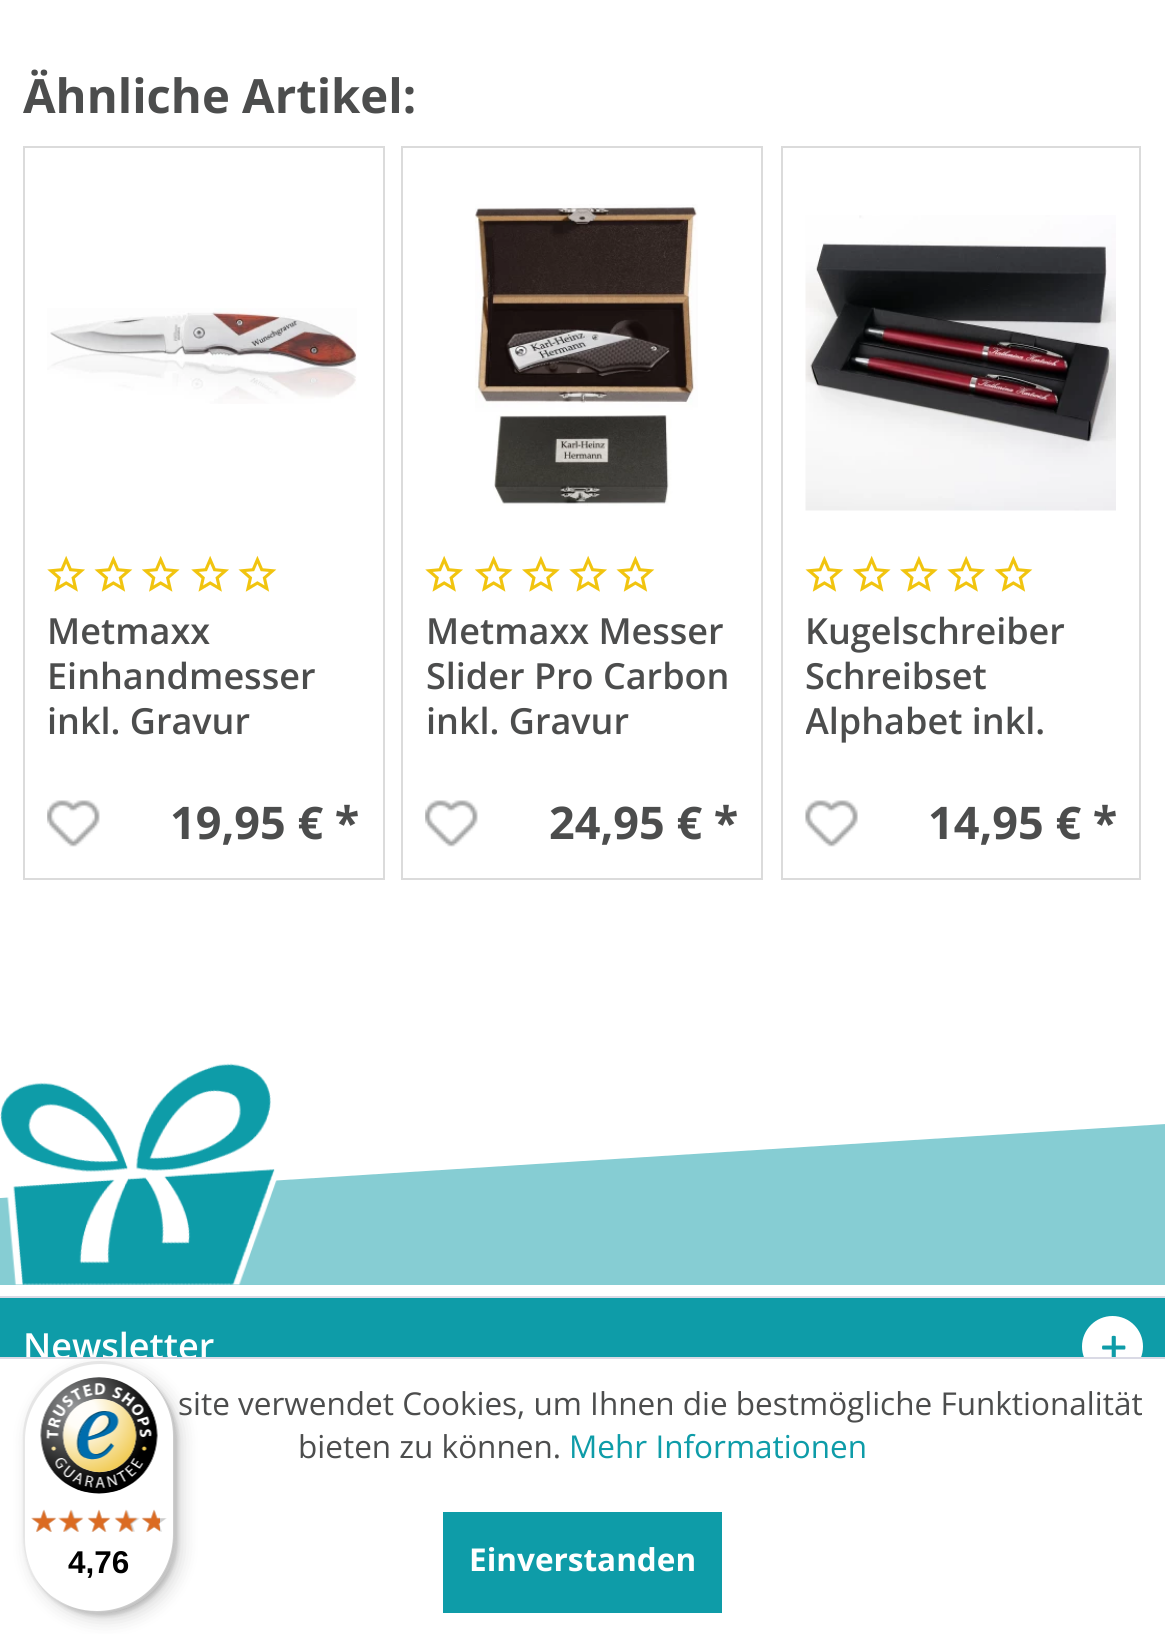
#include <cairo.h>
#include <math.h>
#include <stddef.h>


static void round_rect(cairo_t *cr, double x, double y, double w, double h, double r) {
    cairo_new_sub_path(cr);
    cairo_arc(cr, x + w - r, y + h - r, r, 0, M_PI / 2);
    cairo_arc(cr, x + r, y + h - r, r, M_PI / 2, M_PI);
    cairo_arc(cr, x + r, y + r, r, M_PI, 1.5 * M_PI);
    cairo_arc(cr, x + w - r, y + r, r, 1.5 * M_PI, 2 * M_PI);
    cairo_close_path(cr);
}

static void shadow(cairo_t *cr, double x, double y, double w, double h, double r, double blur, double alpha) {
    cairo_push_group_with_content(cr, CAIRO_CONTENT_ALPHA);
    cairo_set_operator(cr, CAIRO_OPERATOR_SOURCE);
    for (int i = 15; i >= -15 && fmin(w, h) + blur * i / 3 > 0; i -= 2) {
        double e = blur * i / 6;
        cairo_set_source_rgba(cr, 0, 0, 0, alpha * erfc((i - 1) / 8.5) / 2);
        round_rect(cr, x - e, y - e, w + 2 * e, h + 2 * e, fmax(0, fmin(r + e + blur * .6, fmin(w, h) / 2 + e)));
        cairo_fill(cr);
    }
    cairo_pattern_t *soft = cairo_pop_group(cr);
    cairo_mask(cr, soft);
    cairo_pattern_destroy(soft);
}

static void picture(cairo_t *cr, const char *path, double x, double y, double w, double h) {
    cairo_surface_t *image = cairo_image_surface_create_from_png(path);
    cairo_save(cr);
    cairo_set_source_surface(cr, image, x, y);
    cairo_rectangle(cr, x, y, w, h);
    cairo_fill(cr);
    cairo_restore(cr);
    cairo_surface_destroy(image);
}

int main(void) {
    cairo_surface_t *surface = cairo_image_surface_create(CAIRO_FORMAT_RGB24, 1165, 1634);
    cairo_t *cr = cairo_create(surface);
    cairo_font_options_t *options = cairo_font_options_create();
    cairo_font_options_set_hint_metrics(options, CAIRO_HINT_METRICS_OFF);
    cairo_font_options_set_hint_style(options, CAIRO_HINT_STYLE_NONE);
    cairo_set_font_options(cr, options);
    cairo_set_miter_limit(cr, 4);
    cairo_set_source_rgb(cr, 1, 1, 1);
    cairo_paint(cr);
    cairo_select_font_face(cr, "Open Sans", CAIRO_FONT_SLANT_NORMAL, CAIRO_FONT_WEIGHT_BOLD);
    cairo_set_font_size(cr, 47.25);
    cairo_set_source_rgb(cr, 0.298, 0.302, 0.302);
    cairo_move_to(cr, 23, 113);
    cairo_show_text(cr, "Ähnliche Artikel:");
    cairo_rectangle(cr, 24, 147, 360, 732);
    cairo_set_source_rgb(cr, 0.859, 0.859, 0.859);
    cairo_stroke(cr);
    picture(cr, "img1.png", 47, 308, 310, 96);
    picture(cr, "img2.png", 47, 555, 38, 37);
    picture(cr, "img3.png", 94, 555, 39, 37);
    picture(cr, "img4.png", 141, 555, 39, 37);
    picture(cr, "img2.png", 191, 555, 38, 37);
    picture(cr, "img3.png", 238, 555, 39, 37);
    cairo_select_font_face(cr, "Open Sans SemiBold", CAIRO_FONT_SLANT_NORMAL, CAIRO_FONT_WEIGHT_NORMAL);
    cairo_set_font_size(cr, 36);
    cairo_set_source_rgb(cr, 0.298, 0.302, 0.302);
    cairo_move_to(cr, 47, 644);
    cairo_show_text(cr, "Metmaxx");
    cairo_move_to(cr, 47, 689);
    cairo_show_text(cr, "Einhandmesser");
    cairo_move_to(cr, 47, 734);
    cairo_show_text(cr, "inkl. Gravur");
    picture(cr, "img5.png", 47, 800, 53, 47);
    cairo_select_font_face(cr, "Open Sans", CAIRO_FONT_SLANT_NORMAL, CAIRO_FONT_WEIGHT_BOLD);
    cairo_set_font_size(cr, 45);
    cairo_move_to(cr, 170, 839);
    cairo_show_text(cr, "19,95 € *");
    cairo_rectangle(cr, 402, 147, 360, 732);
    cairo_set_source_rgb(cr, 0.859, 0.859, 0.859);
    cairo_stroke(cr);
    picture(cr, "img6.png", 475, 204, 223, 302);
    picture(cr, "img2.png", 425, 555, 38, 37);
    picture(cr, "img4.png", 474, 555, 39, 37);
    picture(cr, "img7.png", 522, 555, 38, 37);
    picture(cr, "img2.png", 569, 555, 38, 37);
    picture(cr, "img3.png", 616, 555, 39, 37);
    cairo_select_font_face(cr, "Open Sans SemiBold", CAIRO_FONT_SLANT_NORMAL, CAIRO_FONT_WEIGHT_NORMAL);
    cairo_set_font_size(cr, 36);
    cairo_set_source_rgb(cr, 0.298, 0.302, 0.302);
    cairo_move_to(cr, 426, 644);
    cairo_show_text(cr, "Metmaxx Messer");
    cairo_move_to(cr, 426, 689);
    cairo_show_text(cr, "Slider Pro Carbon");
    cairo_move_to(cr, 426, 734);
    cairo_show_text(cr, "inkl. Gravur");
    picture(cr, "img5.png", 425, 800, 53, 47);
    cairo_select_font_face(cr, "Open Sans", CAIRO_FONT_SLANT_NORMAL, CAIRO_FONT_WEIGHT_BOLD);
    cairo_set_font_size(cr, 45);
    cairo_move_to(cr, 549, 839);
    cairo_show_text(cr, "24,95 € *");
    cairo_rectangle(cr, 782, 147, 358, 732);
    cairo_set_source_rgb(cr, 0.859, 0.859, 0.859);
    cairo_stroke(cr);
    picture(cr, "img8.png", 805, 215, 311, 296);
    picture(cr, "img3.png", 805, 555, 39, 37);
    picture(cr, "img4.png", 852, 555, 39, 37);
    picture(cr, "img7.png", 900, 555, 38, 37);
    picture(cr, "img2.png", 947, 555, 38, 37);
    picture(cr, "img3.png", 994, 555, 39, 37);
    cairo_select_font_face(cr, "Open Sans SemiBold", CAIRO_FONT_SLANT_NORMAL, CAIRO_FONT_WEIGHT_NORMAL);
    cairo_set_font_size(cr, 36);
    cairo_set_source_rgb(cr, 0.298, 0.302, 0.302);
    cairo_move_to(cr, 805, 644);
    cairo_show_text(cr, "Kugelschreiber");
    cairo_move_to(cr, 805, 689);
    cairo_show_text(cr, "Schreibset");
    cairo_save(cr);
    cairo_rectangle(cr, 806, 608, 310, 137);
    cairo_clip(cr);
    cairo_move_to(cr, 805, 734);
    cairo_show_text(cr, "Alphabet inkl.");
    cairo_restore(cr);
    picture(cr, "img9.png", 805, 800, 53, 47);
    cairo_select_font_face(cr, "Open Sans", CAIRO_FONT_SLANT_NORMAL, CAIRO_FONT_WEIGHT_BOLD);
    cairo_set_font_size(cr, 45);
    cairo_move_to(cr, 928, 839);
    cairo_show_text(cr, "14,95 € *");
    cairo_set_source_rgb(cr, 0.525, 0.804, 0.827);
    cairo_new_path(cr);
    cairo_move_to(cr, 0, 1198);
    cairo_line_to(cr, 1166, 1124);
    cairo_line_to(cr, 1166, 1349);
    cairo_line_to(cr, 0, 1423);
    cairo_close_path(cr);
    cairo_fill(cr);
    picture(cr, "img10.png", 0, 1063, 277, 222);
    cairo_set_source_rgb(cr, 1, 1, 1);
    cairo_rectangle(cr, 0, 1285, 1165, 11);
    cairo_fill(cr);
    cairo_set_source_rgb(cr, 0.055, 0.612, 0.659);
    cairo_rectangle(cr, 0, 1298, 1165, 59);
    cairo_fill(cr);
    cairo_set_source_rgb(cr, 0.855, 0.855, 0.898);
    cairo_rectangle(cr, 0, 1296, 1165, 2);
    cairo_fill(cr);
    cairo_select_font_face(cr, "Open Sans SemiBold", CAIRO_FONT_SLANT_NORMAL, CAIRO_FONT_WEIGHT_NORMAL);
    cairo_set_font_size(cr, 36);
    cairo_set_source_rgb(cr, 1, 1, 1);
    cairo_move_to(cr, 23, 1359);
    cairo_show_text(cr, "Newsletter");
    cairo_new_path(cr);
    cairo_arc(cr, 1112.5, 1346.5, 30.5, 0, 2 * M_PI);
    cairo_fill(cr);
    picture(cr, "img11.png", 1102, 1335, 24, 22);
    cairo_rectangle(cr, 0, 1359, 1008, 64);
    cairo_fill(cr);
    cairo_set_source_rgb(cr, 0.855, 0.855, 0.898);
    cairo_rectangle(cr, 0, 1357, 1165, 2);
    cairo_fill(cr);
    cairo_set_source_rgb(cr, 0, 0, 0);
    shadow(cr, 29, 1368, 153, 252, 76.5, 9, 0.15);
    shadow(cr, 25, 1364, 153, 252, 76.5, 2, 0.15);
    cairo_set_source_rgb(cr, 1, 1, 1);
    round_rect(cr, 23, 1361, 153, 252, 76.5);
    cairo_fill(cr);
    cairo_set_source_rgba(cr, 0, 0, 0, 0.1);
    cairo_new_path(cr);
    cairo_move_to(cr, 101, 1364);
    cairo_curve_to(cr, 127, 1364, 151, 1377, 165, 1398);
    cairo_curve_to(cr, 151, 1376, 127, 1361, 100, 1361);
    cairo_curve_to(cr, 57, 1361, 23, 1395, 23, 1438);
    cairo_line_to(cr, 23, 1536);
    cairo_curve_to(cr, 23, 1554, 29, 1570, 39, 1583);
    cairo_curve_to(cr, 30, 1571, 25, 1555, 25, 1539);
    cairo_line_to(cr, 25, 1440);
    cairo_curve_to(cr, 25, 1398, 59, 1364, 101, 1364);
    cairo_close_path(cr);
    cairo_fill(cr);
    cairo_set_source_rgba(cr, 0, 0, 0, 0.2);
    cairo_new_path(cr);
    cairo_move_to(cr, 52, 1596);
    cairo_curve_to(cr, 65, 1607, 81, 1613, 100, 1613);
    cairo_curve_to(cr, 142, 1613, 176, 1579, 176, 1536);
    cairo_line_to(cr, 176, 1438);
    cairo_curve_to(cr, 176, 1411, 163, 1389, 143, 1375);
    cairo_curve_to(cr, 161, 1389, 173, 1411, 173, 1436);
    cairo_line_to(cr, 173, 1534);
    cairo_curve_to(cr, 173, 1577, 139, 1611, 97, 1611);
    cairo_curve_to(cr, 80, 1611, 65, 1606, 52, 1596);
    cairo_close_path(cr);
    cairo_fill(cr);
    cairo_set_source_rgba(cr, 0.196, 0.196, 0.196, 0.2);
    cairo_new_path(cr);
    cairo_move_to(cr, 64, 1604);
    cairo_curve_to(cr, 75, 1610, 87, 1613, 100, 1613);
    cairo_curve_to(cr, 142, 1613, 176, 1579, 176, 1536);
    cairo_line_to(cr, 176, 1438);
    cairo_curve_to(cr, 176, 1410, 161, 1385, 139, 1372);
    cairo_curve_to(cr, 160, 1385, 174, 1409, 174, 1436);
    cairo_line_to(cr, 174, 1535);
    cairo_curve_to(cr, 174, 1578, 140, 1612, 98, 1612);
    cairo_curve_to(cr, 86, 1612, 74, 1609, 64, 1604);
    cairo_close_path(cr);
    cairo_fill(cr);
    cairo_set_source_rgba(cr, 1, 1, 1, 0.3);
    cairo_new_path(cr);
    cairo_move_to(cr, 59, 1601);
    cairo_curve_to(cr, 71, 1609, 85, 1613, 100, 1613);
    cairo_curve_to(cr, 142, 1613, 176, 1579, 176, 1536);
    cairo_line_to(cr, 176, 1438);
    cairo_curve_to(cr, 176, 1409, 161, 1384, 138, 1371);
    cairo_curve_to(cr, 159, 1385, 174, 1409, 174, 1437);
    cairo_line_to(cr, 174, 1536);
    cairo_curve_to(cr, 174, 1578, 140, 1612, 98, 1612);
    cairo_curve_to(cr, 84, 1612, 71, 1608, 59, 1601);
    cairo_close_path(cr);
    cairo_fill(cr);
    picture(cr, "img12.png", 40, 1377, 118, 117);
    picture(cr, "img18.png", 31, 1510, 25, 22);
    picture(cr, "img13.png", 31, 1509, 26, 23);
    picture(cr, "img19.png", 61, 1510, 22, 22);
    picture(cr, "img14.png", 58, 1509, 26, 23);
    picture(cr, "img20.png", 88, 1510, 22, 22);
    picture(cr, "img15.png", 87, 1509, 24, 23);
    picture(cr, "img21.png", 115, 1510, 25, 22);
    picture(cr, "img16.png", 114, 1509, 24, 23);
    picture(cr, "img22.png", 142, 1510, 25, 22);
    picture(cr, "img17.png", 141, 1509, 19, 23);
    cairo_select_font_face(cr, "Liberation Sans", CAIRO_FONT_SLANT_NORMAL, CAIRO_FONT_WEIGHT_BOLD);
    cairo_set_font_size(cr, 31.5);
    cairo_set_source_rgb(cr, 0, 0, 0);
    cairo_move_to(cr, 68, 1573);
    cairo_show_text(cr, "4,76");
    cairo_select_font_face(cr, "Open Sans", CAIRO_FONT_SLANT_NORMAL, CAIRO_FONT_WEIGHT_NORMAL);
    cairo_set_source_rgb(cr, 0.298, 0.302, 0.302);
    cairo_move_to(cr, 178, 1415);
    cairo_show_text(cr, "site verwendet Cookies, um Ihnen die bestmögliche Funktionalität");
    cairo_move_to(cr, 298, 1458);
    cairo_show_text(cr, "bieten zu können.");
    cairo_set_source_rgb(cr, 0.055, 0.612, 0.659);
    cairo_move_to(cr, 569, 1458);
    cairo_show_text(cr, "Mehr Informationen");
    cairo_rectangle(cr, 443, 1512, 279, 101);
    cairo_fill(cr);
    cairo_select_font_face(cr, "Open Sans", CAIRO_FONT_SLANT_NORMAL, CAIRO_FONT_WEIGHT_BOLD);
    cairo_set_source_rgb(cr, 1, 1, 1);
    cairo_move_to(cr, 469, 1571);
    cairo_show_text(cr, "Einverstanden");
    cairo_surface_write_to_png(surface, "page.png");
    cairo_font_options_destroy(options);
    cairo_destroy(cr);
    cairo_surface_destroy(surface);
    return 0;
}
